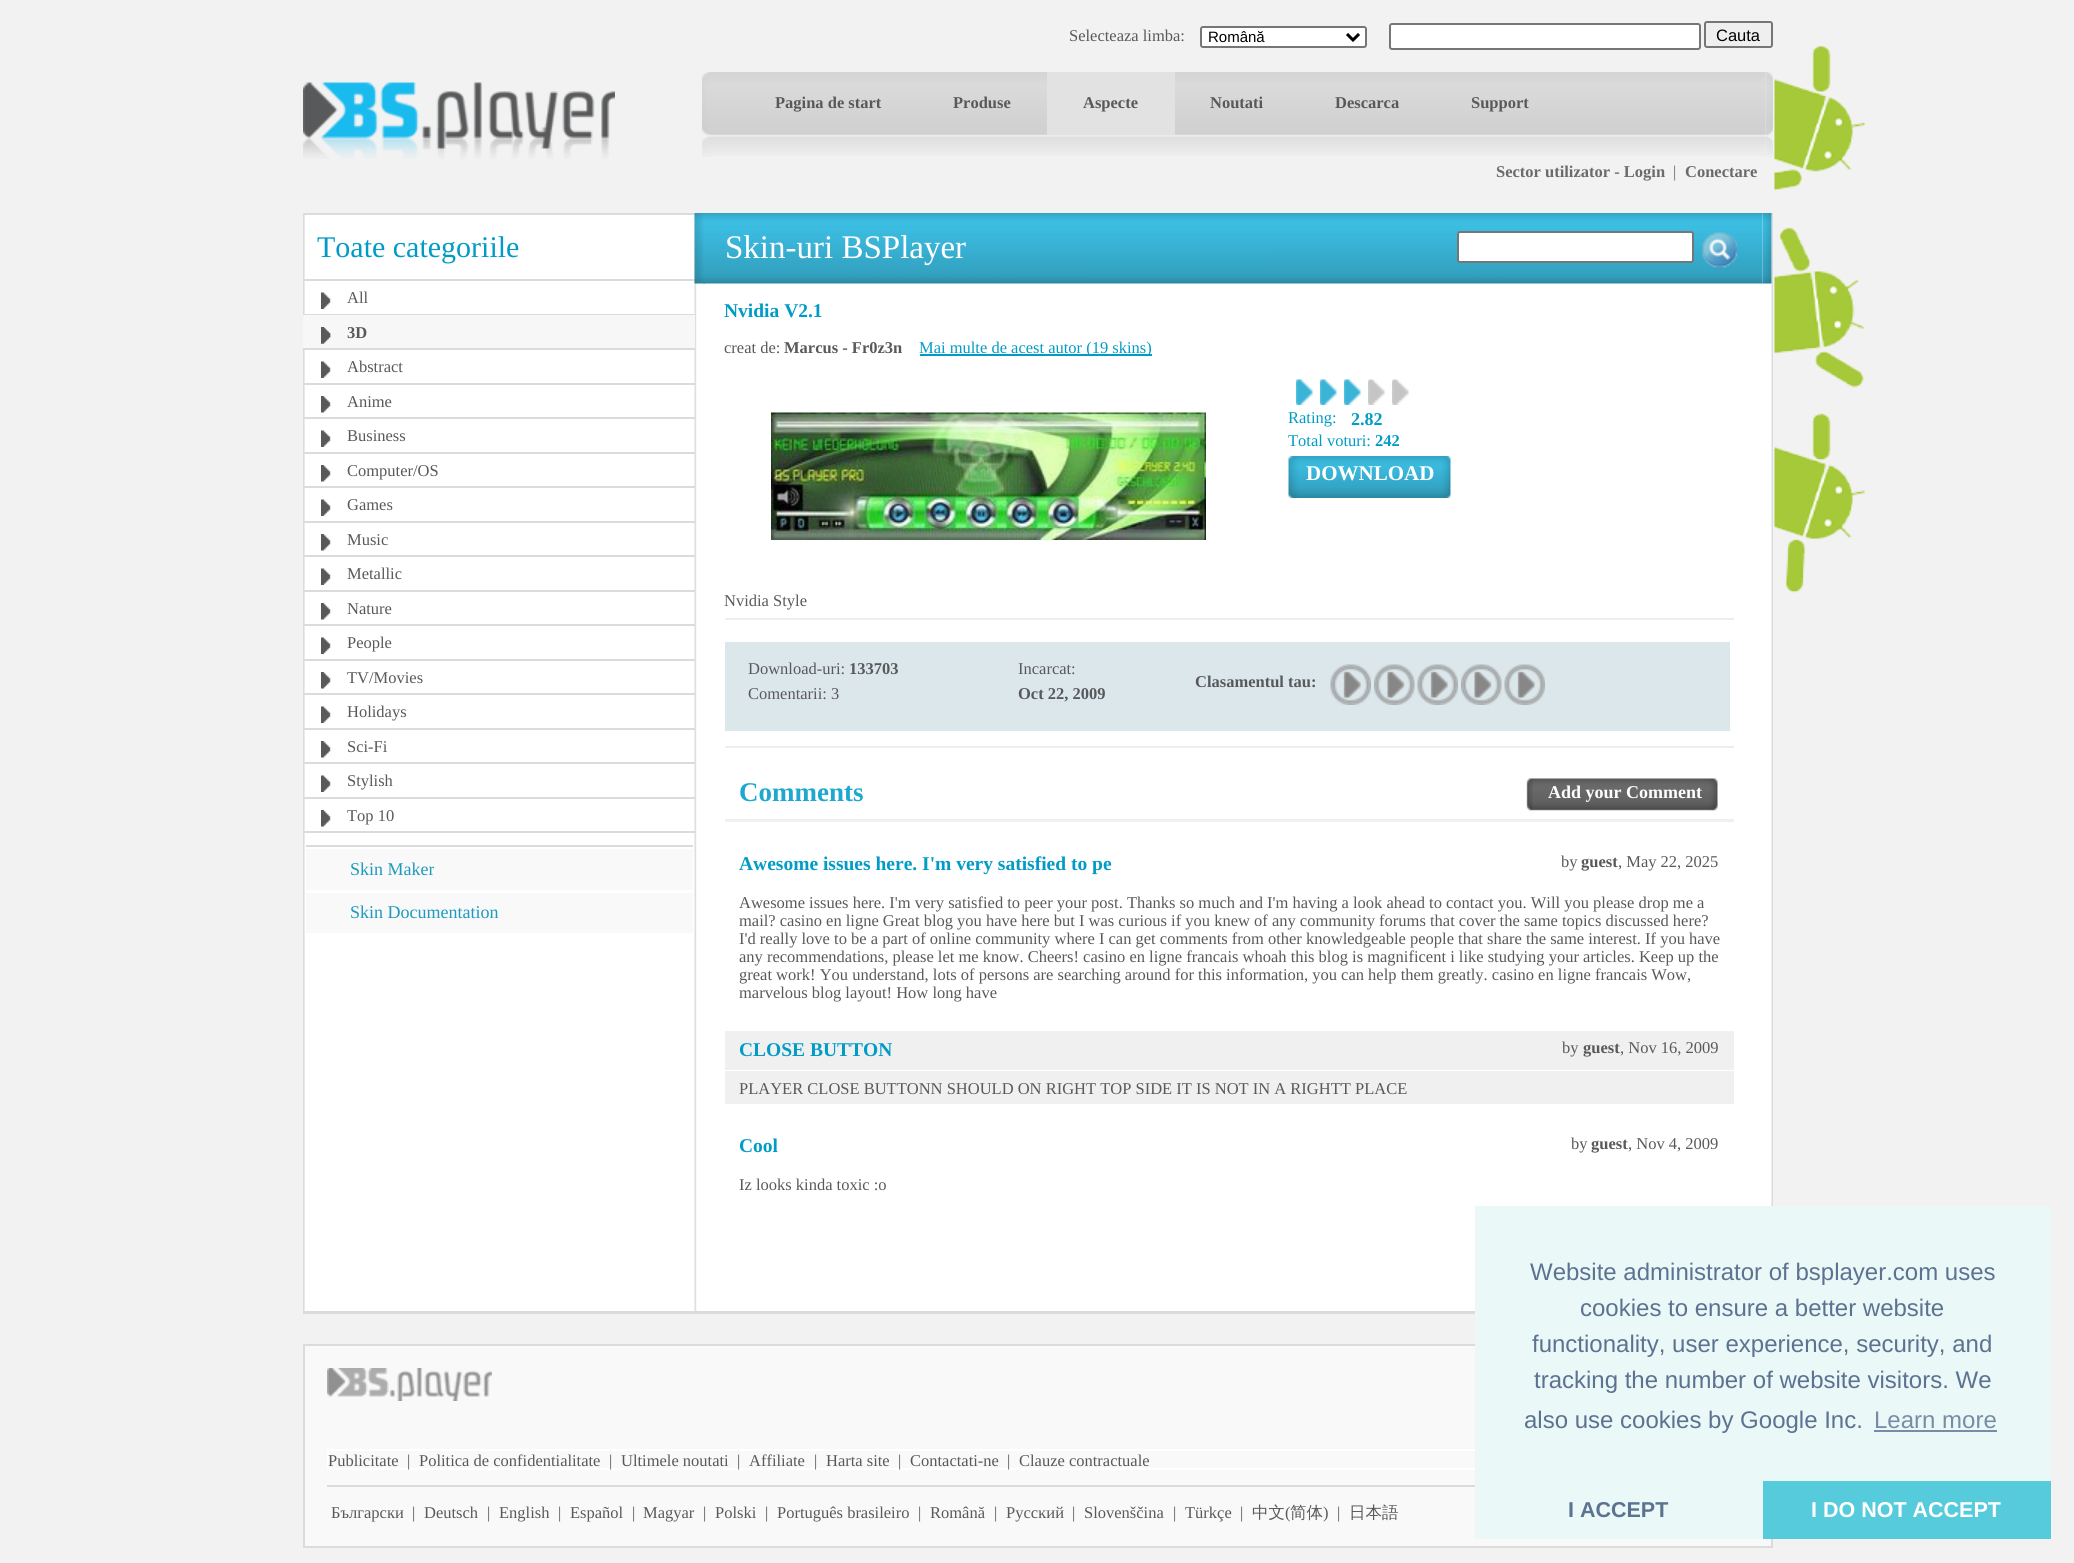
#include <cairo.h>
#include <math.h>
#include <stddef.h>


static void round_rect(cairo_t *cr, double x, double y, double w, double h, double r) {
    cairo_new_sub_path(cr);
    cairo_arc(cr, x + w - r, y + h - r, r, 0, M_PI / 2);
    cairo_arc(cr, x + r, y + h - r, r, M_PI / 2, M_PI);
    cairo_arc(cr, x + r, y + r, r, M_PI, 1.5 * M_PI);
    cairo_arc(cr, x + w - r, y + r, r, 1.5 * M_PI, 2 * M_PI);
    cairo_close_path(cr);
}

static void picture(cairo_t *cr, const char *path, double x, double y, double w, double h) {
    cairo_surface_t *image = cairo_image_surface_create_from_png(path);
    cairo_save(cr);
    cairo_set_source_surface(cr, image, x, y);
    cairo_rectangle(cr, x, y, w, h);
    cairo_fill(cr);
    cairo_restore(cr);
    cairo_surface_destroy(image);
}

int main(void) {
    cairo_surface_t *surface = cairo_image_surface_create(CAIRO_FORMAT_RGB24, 2074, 1563);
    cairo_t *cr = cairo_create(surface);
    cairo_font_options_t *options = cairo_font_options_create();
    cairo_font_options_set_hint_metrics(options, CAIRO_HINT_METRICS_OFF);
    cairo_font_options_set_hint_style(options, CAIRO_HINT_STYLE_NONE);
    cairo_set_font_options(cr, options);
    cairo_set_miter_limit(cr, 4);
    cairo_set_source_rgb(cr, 0.949, 0.949, 0.949);
    cairo_paint(cr);
    picture(cr, "img1.png", 303, 82, 312, 77);
    cairo_select_font_face(cr, "Liberation Serif", CAIRO_FONT_SLANT_NORMAL, CAIRO_FONT_WEIGHT_NORMAL);
    cairo_set_font_size(cr, 16.5);
    cairo_set_source_rgb(cr, 0.345, 0.349, 0.357);
    cairo_move_to(cr, 1069, 41);
    cairo_show_text(cr, "Selecteaza limba:");
    cairo_set_source_rgb(cr, 1, 1, 1);
    round_rect(cr, 1201, 27, 165, 20, 2);
    cairo_fill_preserve(cr);
    cairo_set_source_rgb(cr, 0.463, 0.463, 0.463);
    cairo_stroke(cr);
    cairo_new_path(cr);
    cairo_move_to(cr, 1347, 34);
    cairo_line_to(cr, 1353, 40);
    cairo_line_to(cr, 1359, 34);
    cairo_set_source_rgb(cr, 0, 0, 0);
    cairo_set_line_width(cr, 3);
    cairo_stroke(cr);
    cairo_select_font_face(cr, "Liberation Sans", CAIRO_FONT_SLANT_NORMAL, CAIRO_FONT_WEIGHT_NORMAL);
    cairo_set_font_size(cr, 15);
    cairo_move_to(cr, 1208, 42);
    cairo_show_text(cr, "Română");
    cairo_set_source_rgb(cr, 1, 1, 1);
    round_rect(cr, 1390, 24, 310, 25, 2);
    cairo_fill_preserve(cr);
    cairo_set_source_rgb(cr, 0.463, 0.463, 0.463);
    cairo_set_line_width(cr, 2);
    cairo_stroke(cr);
    cairo_set_source_rgb(cr, 0.937, 0.937, 0.937);
    round_rect(cr, 1705, 22, 67, 25, 2);
    cairo_fill_preserve(cr);
    cairo_set_source_rgb(cr, 0.463, 0.463, 0.463);
    cairo_stroke(cr);
    cairo_set_font_size(cr, 16.5);
    cairo_set_source_rgb(cr, 0, 0, 0);
    cairo_move_to(cr, 1716, 41);
    cairo_show_text(cr, "Cauta");
    picture(cr, "img2.png", 702, 72, 9, 85);
    picture(cr, "img3.png", 1765, 72, 8, 85);
    picture(cr, "img4.png", 711, 72, 1055, 84);
    cairo_select_font_face(cr, "Liberation Serif", CAIRO_FONT_SLANT_NORMAL, CAIRO_FONT_WEIGHT_BOLD);
    cairo_set_source_rgb(cr, 0.345, 0.349, 0.357);
    cairo_move_to(cr, 775, 108);
    cairo_show_text(cr, "Pagina de start");
    cairo_move_to(cr, 953, 108);
    cairo_show_text(cr, "Produse");
    cairo_set_source_rgb(cr, 0.886, 0.886, 0.886);
    cairo_rectangle(cr, 1047, 72, 128, 63);
    cairo_fill(cr);
    cairo_set_source_rgb(cr, 0.345, 0.349, 0.357);
    cairo_move_to(cr, 1083, 108);
    cairo_show_text(cr, "Aspecte");
    cairo_move_to(cr, 1210, 108);
    cairo_show_text(cr, "Noutati");
    cairo_move_to(cr, 1335, 108);
    cairo_show_text(cr, "Descarca");
    cairo_move_to(cr, 1471, 108);
    cairo_show_text(cr, "Support");
    cairo_set_source_rgb(cr, 0.42, 0.42, 0.42);
    cairo_move_to(cr, 1496, 177);
    cairo_show_text(cr, "Sector utilizator - Login");
    cairo_select_font_face(cr, "Liberation Serif", CAIRO_FONT_SLANT_NORMAL, CAIRO_FONT_WEIGHT_NORMAL);
    cairo_move_to(cr, 1673, 177);
    cairo_show_text(cr, "|");
    cairo_select_font_face(cr, "Liberation Serif", CAIRO_FONT_SLANT_NORMAL, CAIRO_FONT_WEIGHT_BOLD);
    cairo_move_to(cr, 1685, 177);
    cairo_show_text(cr, "Conectare");
    picture(cr, "img5.png", 1774, 45, 91, 548);
    picture(cr, "img6.png", 303, 215, 1470, 1096);
    cairo_set_source_rgb(cr, 0.859, 0.859, 0.859);
    cairo_rectangle(cr, 303, 213, 1470, 2);
    cairo_fill(cr);
    cairo_rectangle(cr, 303, 1311, 1172, 3);
    cairo_fill(cr);
    cairo_rectangle(cr, 303, 279, 392, 2);
    cairo_fill(cr);
    cairo_select_font_face(cr, "Liberation Serif", CAIRO_FONT_SLANT_NORMAL, CAIRO_FONT_WEIGHT_NORMAL);
    cairo_set_font_size(cr, 30);
    cairo_set_source_rgb(cr, 0.004, 0.608, 0.78);
    cairo_move_to(cr, 317, 257);
    cairo_show_text(cr, "Toate categoriile");
    picture(cr, "img7.png", 321, 292, 10, 17);
    cairo_set_source_rgb(cr, 0.859, 0.859, 0.859);
    cairo_rectangle(cr, 303, 314, 392, 1);
    cairo_fill(cr);
    cairo_set_font_size(cr, 16.5);
    cairo_set_source_rgb(cr, 0.345, 0.349, 0.357);
    cairo_move_to(cr, 347, 303);
    cairo_show_text(cr, "All");
    cairo_set_source_rgb(cr, 0.965, 0.965, 0.965);
    cairo_rectangle(cr, 303, 315, 392, 33);
    cairo_fill(cr);
    picture(cr, "img8.png", 321, 327, 10, 17);
    picture(cr, "img9.png", 321, 327, 10, 17);
    cairo_set_source_rgb(cr, 0.859, 0.859, 0.859);
    cairo_rectangle(cr, 303, 348, 392, 2);
    cairo_fill(cr);
    cairo_select_font_face(cr, "Liberation Serif", CAIRO_FONT_SLANT_NORMAL, CAIRO_FONT_WEIGHT_BOLD);
    cairo_set_source_rgb(cr, 0.345, 0.349, 0.357);
    cairo_move_to(cr, 347, 338);
    cairo_show_text(cr, "3D");
    picture(cr, "img7.png", 321, 361, 10, 17);
    cairo_set_source_rgb(cr, 0.859, 0.859, 0.859);
    cairo_rectangle(cr, 303, 383, 392, 2);
    cairo_fill(cr);
    cairo_select_font_face(cr, "Liberation Serif", CAIRO_FONT_SLANT_NORMAL, CAIRO_FONT_WEIGHT_NORMAL);
    cairo_set_source_rgb(cr, 0.345, 0.349, 0.357);
    cairo_move_to(cr, 347, 372);
    cairo_show_text(cr, "Abstract");
    picture(cr, "img10.png", 321, 396, 10, 17);
    cairo_set_source_rgb(cr, 0.859, 0.859, 0.859);
    cairo_rectangle(cr, 303, 417, 392, 2);
    cairo_fill(cr);
    cairo_set_source_rgb(cr, 0.345, 0.349, 0.357);
    cairo_move_to(cr, 347, 407);
    cairo_show_text(cr, "Anime");
    picture(cr, "img7.png", 321, 430, 10, 17);
    cairo_set_source_rgb(cr, 0.859, 0.859, 0.859);
    cairo_rectangle(cr, 303, 452, 392, 2);
    cairo_fill(cr);
    cairo_set_source_rgb(cr, 0.345, 0.349, 0.357);
    cairo_move_to(cr, 347, 441);
    cairo_show_text(cr, "Business");
    picture(cr, "img10.png", 321, 465, 10, 17);
    cairo_set_source_rgb(cr, 0.859, 0.859, 0.859);
    cairo_rectangle(cr, 303, 486, 392, 2);
    cairo_fill(cr);
    cairo_set_source_rgb(cr, 0.345, 0.349, 0.357);
    cairo_move_to(cr, 347, 476);
    cairo_show_text(cr, "Computer/OS");
    picture(cr, "img7.png", 321, 499, 10, 17);
    cairo_set_source_rgb(cr, 0.859, 0.859, 0.859);
    cairo_rectangle(cr, 303, 521, 392, 2);
    cairo_fill(cr);
    cairo_set_source_rgb(cr, 0.345, 0.349, 0.357);
    cairo_move_to(cr, 347, 510);
    cairo_show_text(cr, "Games");
    picture(cr, "img10.png", 321, 534, 10, 17);
    cairo_set_source_rgb(cr, 0.859, 0.859, 0.859);
    cairo_rectangle(cr, 303, 555, 392, 2);
    cairo_fill(cr);
    cairo_set_source_rgb(cr, 0.345, 0.349, 0.357);
    cairo_move_to(cr, 347, 545);
    cairo_show_text(cr, "Music");
    picture(cr, "img7.png", 321, 568, 10, 17);
    cairo_set_source_rgb(cr, 0.859, 0.859, 0.859);
    cairo_rectangle(cr, 303, 590, 392, 2);
    cairo_fill(cr);
    cairo_set_source_rgb(cr, 0.345, 0.349, 0.357);
    cairo_move_to(cr, 347, 579);
    cairo_show_text(cr, "Metallic");
    picture(cr, "img10.png", 321, 603, 10, 17);
    cairo_set_source_rgb(cr, 0.859, 0.859, 0.859);
    cairo_rectangle(cr, 303, 624, 392, 2);
    cairo_fill(cr);
    cairo_set_source_rgb(cr, 0.345, 0.349, 0.357);
    cairo_move_to(cr, 347, 614);
    cairo_show_text(cr, "Nature");
    picture(cr, "img7.png", 321, 637, 10, 17);
    cairo_set_source_rgb(cr, 0.859, 0.859, 0.859);
    cairo_rectangle(cr, 303, 659, 392, 2);
    cairo_fill(cr);
    cairo_set_source_rgb(cr, 0.345, 0.349, 0.357);
    cairo_move_to(cr, 347, 648);
    cairo_show_text(cr, "People");
    picture(cr, "img10.png", 321, 672, 10, 17);
    cairo_set_source_rgb(cr, 0.859, 0.859, 0.859);
    cairo_rectangle(cr, 303, 693, 392, 2);
    cairo_fill(cr);
    cairo_set_source_rgb(cr, 0.345, 0.349, 0.357);
    cairo_move_to(cr, 347, 683);
    cairo_show_text(cr, "TV/Movies");
    picture(cr, "img7.png", 321, 706, 10, 17);
    cairo_set_source_rgb(cr, 0.859, 0.859, 0.859);
    cairo_rectangle(cr, 303, 728, 392, 2);
    cairo_fill(cr);
    cairo_set_source_rgb(cr, 0.345, 0.349, 0.357);
    cairo_move_to(cr, 347, 717);
    cairo_show_text(cr, "Holidays");
    picture(cr, "img10.png", 321, 741, 10, 17);
    cairo_set_source_rgb(cr, 0.859, 0.859, 0.859);
    cairo_rectangle(cr, 303, 762, 392, 2);
    cairo_fill(cr);
    cairo_set_source_rgb(cr, 0.345, 0.349, 0.357);
    cairo_move_to(cr, 347, 752);
    cairo_show_text(cr, "Sci-Fi");
    picture(cr, "img7.png", 321, 775, 10, 17);
    cairo_set_source_rgb(cr, 0.859, 0.859, 0.859);
    cairo_rectangle(cr, 303, 797, 392, 2);
    cairo_fill(cr);
    cairo_set_source_rgb(cr, 0.345, 0.349, 0.357);
    cairo_move_to(cr, 347, 786);
    cairo_show_text(cr, "Stylish");
    picture(cr, "img10.png", 321, 810, 10, 17);
    cairo_set_source_rgb(cr, 0.859, 0.859, 0.859);
    cairo_rectangle(cr, 303, 831, 392, 2);
    cairo_fill(cr);
    cairo_set_source_rgb(cr, 0.345, 0.349, 0.357);
    cairo_move_to(cr, 347, 821);
    cairo_show_text(cr, "Top 10");
    cairo_set_source_rgb(cr, 0.859, 0.859, 0.859);
    cairo_rectangle(cr, 306, 845, 387, 2);
    cairo_fill(cr);
    cairo_set_source_rgb(cr, 0.976, 0.976, 0.976);
    cairo_rectangle(cr, 306, 849, 387, 41);
    cairo_fill(cr);
    cairo_set_font_size(cr, 18);
    cairo_set_source_rgb(cr, 0.114, 0.604, 0.745);
    cairo_move_to(cr, 350, 875);
    cairo_show_text(cr, "Skin Maker");
    cairo_set_source_rgb(cr, 0.976, 0.976, 0.976);
    cairo_rectangle(cr, 306, 893, 387, 40);
    cairo_fill(cr);
    cairo_set_source_rgb(cr, 0.114, 0.604, 0.745);
    cairo_move_to(cr, 350, 918);
    cairo_show_text(cr, "Skin Documentation");
    picture(cr, "img11.png", 694, 213, 11, 71);
    picture(cr, "img12.png", 1762, 213, 10, 71);
    picture(cr, "img13.png", 703, 213, 1060, 71);
    cairo_set_font_size(cr, 33);
    cairo_set_source_rgb(cr, 1, 1, 1);
    cairo_move_to(cr, 725, 258);
    cairo_show_text(cr, "Skin-uri BSPlayer");
    round_rect(cr, 1458, 232, 235, 30, 2);
    cairo_fill_preserve(cr);
    cairo_set_source_rgb(cr, 0.463, 0.463, 0.463);
    cairo_stroke(cr);
    picture(cr, "img14.png", 1702, 232, 36, 36);
    cairo_select_font_face(cr, "Liberation Serif", CAIRO_FONT_SLANT_NORMAL, CAIRO_FONT_WEIGHT_BOLD);
    cairo_set_font_size(cr, 19.5);
    cairo_set_source_rgb(cr, 0.004, 0.608, 0.78);
    cairo_move_to(cr, 724, 317);
    cairo_show_text(cr, "Nvidia V2.1");
    cairo_select_font_face(cr, "Liberation Serif", CAIRO_FONT_SLANT_NORMAL, CAIRO_FONT_WEIGHT_NORMAL);
    cairo_set_font_size(cr, 16.5);
    cairo_set_source_rgb(cr, 0.345, 0.349, 0.357);
    cairo_move_to(cr, 724, 353);
    cairo_show_text(cr, "creat de:");
    cairo_select_font_face(cr, "Liberation Serif", CAIRO_FONT_SLANT_NORMAL, CAIRO_FONT_WEIGHT_BOLD);
    cairo_move_to(cr, 784, 353);
    cairo_show_text(cr, "Marcus - Fr0z3n");
    cairo_set_source_rgb(cr, 0.004, 0.608, 0.78);
    cairo_rectangle(cr, 920, 354, 232, 2);
    cairo_fill(cr);
    cairo_select_font_face(cr, "Liberation Serif", CAIRO_FONT_SLANT_NORMAL, CAIRO_FONT_WEIGHT_NORMAL);
    cairo_move_to(cr, 919, 353);
    cairo_show_text(cr, "Mai multe de acest autor (19 skins)");
    picture(cr, "img15.png", 771, 412, 435, 128);
    picture(cr, "img16.png", 1296, 379, 17, 26);
    picture(cr, "img17.png", 1320, 379, 17, 26);
    picture(cr, "img17.png", 1344, 379, 17, 26);
    picture(cr, "img18.png", 1368, 379, 17, 26);
    picture(cr, "img18.png", 1392, 379, 17, 26);
    cairo_move_to(cr, 1288, 423);
    cairo_show_text(cr, "Rating:");
    cairo_select_font_face(cr, "Liberation Serif", CAIRO_FONT_SLANT_NORMAL, CAIRO_FONT_WEIGHT_BOLD);
    cairo_set_font_size(cr, 18);
    cairo_move_to(cr, 1351, 425);
    cairo_show_text(cr, "2.82");
    cairo_select_font_face(cr, "Liberation Serif", CAIRO_FONT_SLANT_NORMAL, CAIRO_FONT_WEIGHT_NORMAL);
    cairo_set_font_size(cr, 16.5);
    cairo_move_to(cr, 1288, 446);
    cairo_show_text(cr, "Total voturi:");
    cairo_select_font_face(cr, "Liberation Serif", CAIRO_FONT_SLANT_NORMAL, CAIRO_FONT_WEIGHT_BOLD);
    cairo_move_to(cr, 1375, 446);
    cairo_show_text(cr, "242");
    picture(cr, "img19.png", 1288, 456, 11, 42);
    picture(cr, "img20.png", 1299, 456, 152, 42);
    cairo_set_font_size(cr, 21);
    cairo_set_source_rgb(cr, 1, 1, 1);
    cairo_move_to(cr, 1306, 480);
    cairo_show_text(cr, "DOWNLOAD");
    cairo_select_font_face(cr, "Liberation Serif", CAIRO_FONT_SLANT_NORMAL, CAIRO_FONT_WEIGHT_NORMAL);
    cairo_set_font_size(cr, 16.5);
    cairo_set_source_rgb(cr, 0.345, 0.349, 0.357);
    cairo_move_to(cr, 724, 606);
    cairo_show_text(cr, "Nvidia Style");
    cairo_set_source_rgb(cr, 0.933, 0.933, 0.933);
    cairo_rectangle(cr, 725, 618, 1009, 2);
    cairo_fill(cr);
    cairo_set_source_rgb(cr, 0.863, 0.906, 0.918);
    cairo_rectangle(cr, 725, 642, 1005, 89);
    cairo_fill(cr);
    cairo_set_source_rgb(cr, 0.345, 0.349, 0.357);
    cairo_move_to(cr, 748, 674);
    cairo_show_text(cr, "Download-uri:");
    cairo_select_font_face(cr, "Liberation Serif", CAIRO_FONT_SLANT_NORMAL, CAIRO_FONT_WEIGHT_BOLD);
    cairo_move_to(cr, 849, 674);
    cairo_show_text(cr, "133703");
    cairo_select_font_face(cr, "Liberation Serif", CAIRO_FONT_SLANT_NORMAL, CAIRO_FONT_WEIGHT_NORMAL);
    cairo_move_to(cr, 748, 699);
    cairo_show_text(cr, "Comentarii: 3");
    cairo_move_to(cr, 1018, 674);
    cairo_show_text(cr, "Incarcat:");
    cairo_select_font_face(cr, "Liberation Serif", CAIRO_FONT_SLANT_NORMAL, CAIRO_FONT_WEIGHT_BOLD);
    cairo_move_to(cr, 1018, 699);
    cairo_show_text(cr, "Oct 22, 2009");
    cairo_move_to(cr, 1195, 687);
    cairo_show_text(cr, "Clasamentul tau:");
    picture(cr, "img21.png", 1330, 664, 41, 41);
    picture(cr, "img22.png", 1374, 664, 41, 41);
    picture(cr, "img21.png", 1417, 664, 41, 41);
    picture(cr, "img22.png", 1461, 664, 41, 41);
    picture(cr, "img23.png", 1504, 664, 41, 41);
    cairo_set_source_rgb(cr, 0.933, 0.933, 0.933);
    cairo_rectangle(cr, 725, 746, 1009, 2);
    cairo_fill(cr);
    cairo_set_source_rgb(cr, 0.941, 0.941, 0.941);
    cairo_rectangle(cr, 725, 819, 1009, 3);
    cairo_fill(cr);
    cairo_set_font_size(cr, 27);
    cairo_set_source_rgb(cr, 0.118, 0.659, 0.812);
    cairo_move_to(cr, 739, 801);
    cairo_show_text(cr, "Comments");
    picture(cr, "img24.png", 1526, 778, 7, 33);
    picture(cr, "img25.png", 1533, 778, 185, 33);
    cairo_set_font_size(cr, 18);
    cairo_set_source_rgb(cr, 1, 1, 1);
    cairo_move_to(cr, 1548, 798);
    cairo_show_text(cr, "Add your Comment");
    cairo_set_font_size(cr, 19.5);
    cairo_set_source_rgb(cr, 0.004, 0.608, 0.78);
    cairo_move_to(cr, 739, 870);
    cairo_show_text(cr, "Awesome issues here. I'm very satisfied to pe");
    cairo_select_font_face(cr, "Liberation Serif", CAIRO_FONT_SLANT_NORMAL, CAIRO_FONT_WEIGHT_NORMAL);
    cairo_set_font_size(cr, 16.5);
    cairo_set_source_rgb(cr, 0.345, 0.349, 0.357);
    cairo_move_to(cr, 1561, 867);
    cairo_show_text(cr, "by");
    cairo_select_font_face(cr, "Liberation Serif", CAIRO_FONT_SLANT_NORMAL, CAIRO_FONT_WEIGHT_BOLD);
    cairo_move_to(cr, 1581, 867);
    cairo_show_text(cr, "guest");
    cairo_select_font_face(cr, "Liberation Serif", CAIRO_FONT_SLANT_NORMAL, CAIRO_FONT_WEIGHT_NORMAL);
    cairo_move_to(cr, 1618, 867);
    cairo_show_text(cr, ", May 22, 2025");
    cairo_move_to(cr, 739, 908);
    cairo_show_text(cr, "Awesome issues here. I'm very satisfied to peer your post. Thanks so much and I'm having a look ahead to contact you. Will you please drop me a");
    cairo_move_to(cr, 739, 926);
    cairo_show_text(cr, "mail? casino en ligne Great blog you have here but I was curious if you knew of any community forums that cover the same topics discussed here?");
    cairo_move_to(cr, 739, 944);
    cairo_show_text(cr, "I'd really love to be a part of online community where I can get comments from other knowledgeable people that share the same interest. If you have");
    cairo_move_to(cr, 739, 962);
    cairo_show_text(cr, "any recommendations, please let me know. Cheers! casino en ligne francais whoah this blog is magnificent i like studying your articles. Keep up the");
    cairo_move_to(cr, 739, 980);
    cairo_show_text(cr, "great work! You understand, lots of persons are searching around for this information, you can help them greatly. casino en ligne francais Wow,");
    cairo_move_to(cr, 739, 998);
    cairo_show_text(cr, "marvelous blog layout! How long have");
    cairo_set_source_rgb(cr, 0.941, 0.941, 0.941);
    cairo_rectangle(cr, 725, 1031, 1009, 39);
    cairo_fill(cr);
    cairo_select_font_face(cr, "Liberation Serif", CAIRO_FONT_SLANT_NORMAL, CAIRO_FONT_WEIGHT_BOLD);
    cairo_set_font_size(cr, 19.5);
    cairo_set_source_rgb(cr, 0.004, 0.608, 0.78);
    cairo_move_to(cr, 739, 1056);
    cairo_show_text(cr, "CLOSE BUTTON");
    cairo_select_font_face(cr, "Liberation Serif", CAIRO_FONT_SLANT_NORMAL, CAIRO_FONT_WEIGHT_NORMAL);
    cairo_set_font_size(cr, 16.5);
    cairo_set_source_rgb(cr, 0.345, 0.349, 0.357);
    cairo_move_to(cr, 1562, 1053);
    cairo_show_text(cr, "by");
    cairo_select_font_face(cr, "Liberation Serif", CAIRO_FONT_SLANT_NORMAL, CAIRO_FONT_WEIGHT_BOLD);
    cairo_move_to(cr, 1583, 1053);
    cairo_show_text(cr, "guest");
    cairo_select_font_face(cr, "Liberation Serif", CAIRO_FONT_SLANT_NORMAL, CAIRO_FONT_WEIGHT_NORMAL);
    cairo_move_to(cr, 1620, 1053);
    cairo_show_text(cr, ", Nov 16, 2009");
    cairo_set_source_rgb(cr, 0.941, 0.941, 0.941);
    cairo_rectangle(cr, 725, 1071, 1009, 33);
    cairo_fill(cr);
    cairo_set_source_rgb(cr, 0.345, 0.349, 0.357);
    cairo_move_to(cr, 739, 1094);
    cairo_show_text(cr, "PLAYER CLOSE BUTTONN SHOULD ON RIGHT TOP SIDE IT IS NOT IN A RIGHTT PLACE");
    cairo_select_font_face(cr, "Liberation Serif", CAIRO_FONT_SLANT_NORMAL, CAIRO_FONT_WEIGHT_BOLD);
    cairo_set_font_size(cr, 19.5);
    cairo_set_source_rgb(cr, 0.004, 0.608, 0.78);
    cairo_move_to(cr, 739, 1152);
    cairo_show_text(cr, "Cool");
    cairo_select_font_face(cr, "Liberation Serif", CAIRO_FONT_SLANT_NORMAL, CAIRO_FONT_WEIGHT_NORMAL);
    cairo_set_font_size(cr, 16.5);
    cairo_set_source_rgb(cr, 0.345, 0.349, 0.357);
    cairo_move_to(cr, 1571, 1149);
    cairo_show_text(cr, "by");
    cairo_select_font_face(cr, "Liberation Serif", CAIRO_FONT_SLANT_NORMAL, CAIRO_FONT_WEIGHT_BOLD);
    cairo_move_to(cr, 1591, 1149);
    cairo_show_text(cr, "guest");
    cairo_select_font_face(cr, "Liberation Serif", CAIRO_FONT_SLANT_NORMAL, CAIRO_FONT_WEIGHT_NORMAL);
    cairo_move_to(cr, 1628, 1149);
    cairo_show_text(cr, ", Nov 4, 2009");
    cairo_move_to(cr, 739, 1190);
    cairo_show_text(cr, "Iz looks kinda toxic :o");
    cairo_set_source_rgb(cr, 0.976, 0.976, 0.976);
    cairo_rectangle(cr, 304, 1345, 1468, 202);
    cairo_fill_preserve(cr);
    cairo_set_source_rgb(cr, 0.859, 0.859, 0.859);
    cairo_stroke(cr);
    picture(cr, "img26.png", 327, 1368, 165, 33);
    cairo_rectangle(cr, 328, 1450, 1428, 19);
    cairo_set_source_rgb(cr, 1, 1, 1);
    cairo_stroke(cr);
    cairo_set_source_rgb(cr, 0.345, 0.349, 0.357);
    cairo_move_to(cr, 328, 1466);
    cairo_show_text(cr, "Publicitate");
    cairo_move_to(cr, 407, 1466);
    cairo_show_text(cr, "|");
    cairo_move_to(cr, 419, 1466);
    cairo_show_text(cr, "Politica de confidentialitate");
    cairo_move_to(cr, 609, 1466);
    cairo_show_text(cr, "|");
    cairo_move_to(cr, 621, 1466);
    cairo_show_text(cr, "Ultimele noutati");
    cairo_move_to(cr, 737, 1466);
    cairo_show_text(cr, "|");
    cairo_move_to(cr, 749, 1466);
    cairo_show_text(cr, "Affiliate");
    cairo_move_to(cr, 814, 1466);
    cairo_show_text(cr, "|");
    cairo_move_to(cr, 826, 1466);
    cairo_show_text(cr, "Harta site");
    cairo_move_to(cr, 898, 1466);
    cairo_show_text(cr, "|");
    cairo_move_to(cr, 910, 1466);
    cairo_show_text(cr, "Contactati-ne");
    cairo_move_to(cr, 1007, 1466);
    cairo_show_text(cr, "|");
    cairo_move_to(cr, 1019, 1466);
    cairo_show_text(cr, "Clauze contractuale");
    cairo_set_source_rgb(cr, 0.859, 0.859, 0.859);
    cairo_rectangle(cr, 327, 1485, 1148, 2);
    cairo_fill(cr);
    cairo_set_source_rgb(cr, 0.345, 0.349, 0.357);
    cairo_move_to(cr, 331, 1518);
    cairo_show_text(cr, "Български");
    cairo_move_to(cr, 412, 1518);
    cairo_show_text(cr, "|");
    cairo_move_to(cr, 424, 1518);
    cairo_show_text(cr, "Deutsch");
    cairo_move_to(cr, 487, 1518);
    cairo_show_text(cr, "|");
    cairo_move_to(cr, 499, 1518);
    cairo_show_text(cr, "English");
    cairo_move_to(cr, 558, 1518);
    cairo_show_text(cr, "|");
    cairo_move_to(cr, 570, 1518);
    cairo_show_text(cr, "Español");
    cairo_move_to(cr, 632, 1518);
    cairo_show_text(cr, "|");
    cairo_move_to(cr, 643, 1518);
    cairo_show_text(cr, "Magyar");
    cairo_move_to(cr, 703, 1518);
    cairo_show_text(cr, "|");
    cairo_move_to(cr, 715, 1518);
    cairo_show_text(cr, "Polski");
    cairo_move_to(cr, 765, 1518);
    cairo_show_text(cr, "|");
    cairo_move_to(cr, 777, 1518);
    cairo_show_text(cr, "Português brasileiro");
    cairo_move_to(cr, 918, 1518);
    cairo_show_text(cr, "|");
    cairo_move_to(cr, 930, 1518);
    cairo_show_text(cr, "Română");
    cairo_move_to(cr, 994, 1518);
    cairo_show_text(cr, "|");
    cairo_move_to(cr, 1006, 1518);
    cairo_show_text(cr, "Pyccĸий");
    cairo_move_to(cr, 1072, 1518);
    cairo_show_text(cr, "|");
    cairo_move_to(cr, 1084, 1518);
    cairo_show_text(cr, "Slovenščina");
    cairo_move_to(cr, 1173, 1518);
    cairo_show_text(cr, "|");
    cairo_move_to(cr, 1185, 1518);
    cairo_show_text(cr, "Türkçe");
    cairo_move_to(cr, 1240, 1518);
    cairo_show_text(cr, "|");
    cairo_select_font_face(cr, "WenQuanYi Zen Hei Medium", CAIRO_FONT_SLANT_NORMAL, CAIRO_FONT_WEIGHT_NORMAL);
    cairo_move_to(cr, 1252, 1518);
    cairo_show_text(cr, "中文");
    cairo_select_font_face(cr, "Liberation Serif", CAIRO_FONT_SLANT_NORMAL, CAIRO_FONT_WEIGHT_NORMAL);
    cairo_move_to(cr, 1285, 1518);
    cairo_show_text(cr, "(");
    cairo_select_font_face(cr, "WenQuanYi Zen Hei Medium", CAIRO_FONT_SLANT_NORMAL, CAIRO_FONT_WEIGHT_NORMAL);
    cairo_move_to(cr, 1290, 1518);
    cairo_show_text(cr, "简体");
    cairo_select_font_face(cr, "Liberation Serif", CAIRO_FONT_SLANT_NORMAL, CAIRO_FONT_WEIGHT_NORMAL);
    cairo_move_to(cr, 1323, 1518);
    cairo_show_text(cr, ")");
    cairo_move_to(cr, 1337, 1518);
    cairo_show_text(cr, "|");
    cairo_select_font_face(cr, "WenQuanYi Zen Hei Medium", CAIRO_FONT_SLANT_NORMAL, CAIRO_FONT_WEIGHT_NORMAL);
    cairo_move_to(cr, 1349, 1518);
    cairo_show_text(cr, "日本語");
    cairo_set_source_rgb(cr, 0.918, 0.969, 0.969);
    cairo_rectangle(cr, 1475, 1206, 576, 333);
    cairo_fill(cr);
    cairo_select_font_face(cr, "Liberation Sans", CAIRO_FONT_SLANT_NORMAL, CAIRO_FONT_WEIGHT_NORMAL);
    cairo_set_font_size(cr, 24);
    cairo_set_source_rgb(cr, 0.361, 0.447, 0.569);
    cairo_move_to(cr, 1530, 1280);
    cairo_show_text(cr, "Website administrator of bsplayer.com uses");
    cairo_move_to(cr, 1580, 1316);
    cairo_show_text(cr, "cookies to ensure a better website");
    cairo_move_to(cr, 1532, 1352);
    cairo_show_text(cr, "functionality, user experience, security, and");
    cairo_move_to(cr, 1534, 1388);
    cairo_show_text(cr, "tracking the number of website visitors. We");
    cairo_move_to(cr, 1524, 1428);
    cairo_show_text(cr, "also use cookies by Google Inc.");
    cairo_set_source_rgb(cr, 0.471, 0.553, 0.647);
    cairo_move_to(cr, 1874, 1428);
    cairo_show_text(cr, "Learn more");
    cairo_rectangle(cr, 1874, 1430, 123, 2);
    cairo_fill(cr);
    cairo_select_font_face(cr, "Liberation Sans", CAIRO_FONT_SLANT_NORMAL, CAIRO_FONT_WEIGHT_BOLD);
    cairo_set_font_size(cr, 21.5);
    cairo_set_source_rgb(cr, 0.361, 0.447, 0.569);
    cairo_move_to(cr, 1568, 1517);
    cairo_show_text(cr, "I ACCEPT");
    cairo_set_source_rgb(cr, 0.337, 0.796, 0.859);
    cairo_rectangle(cr, 1763, 1481, 288, 58);
    cairo_fill(cr);
    cairo_set_source_rgb(cr, 1, 1, 1);
    cairo_move_to(cr, 1811, 1517);
    cairo_show_text(cr, "I DO NOT ACCEPT");
    cairo_surface_write_to_png(surface, "page.png");
    cairo_font_options_destroy(options);
    cairo_destroy(cr);
    cairo_surface_destroy(surface);
    return 0;
}
